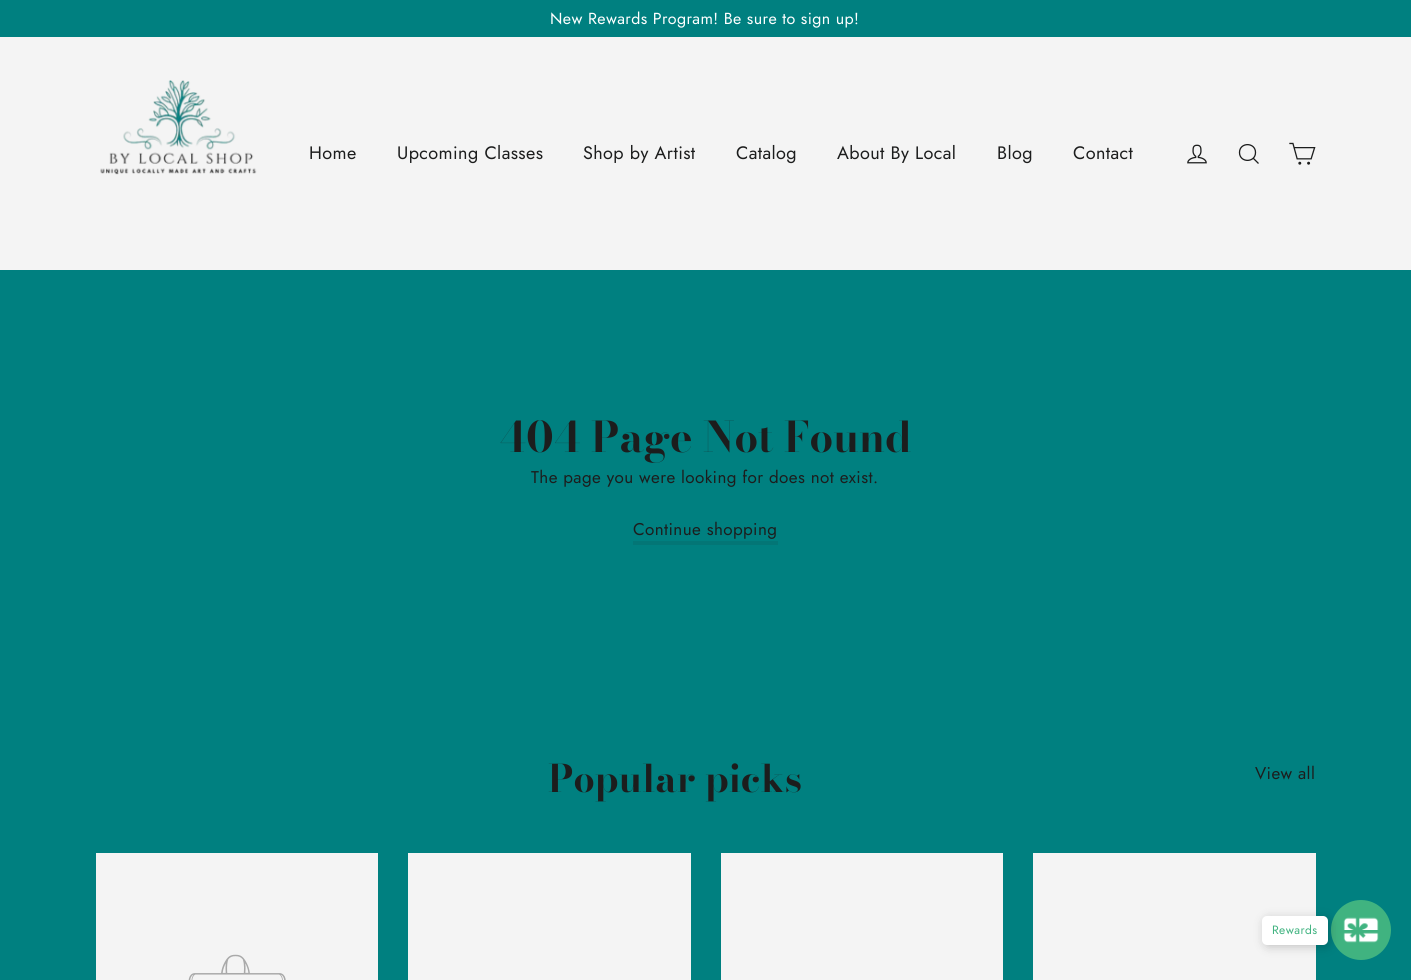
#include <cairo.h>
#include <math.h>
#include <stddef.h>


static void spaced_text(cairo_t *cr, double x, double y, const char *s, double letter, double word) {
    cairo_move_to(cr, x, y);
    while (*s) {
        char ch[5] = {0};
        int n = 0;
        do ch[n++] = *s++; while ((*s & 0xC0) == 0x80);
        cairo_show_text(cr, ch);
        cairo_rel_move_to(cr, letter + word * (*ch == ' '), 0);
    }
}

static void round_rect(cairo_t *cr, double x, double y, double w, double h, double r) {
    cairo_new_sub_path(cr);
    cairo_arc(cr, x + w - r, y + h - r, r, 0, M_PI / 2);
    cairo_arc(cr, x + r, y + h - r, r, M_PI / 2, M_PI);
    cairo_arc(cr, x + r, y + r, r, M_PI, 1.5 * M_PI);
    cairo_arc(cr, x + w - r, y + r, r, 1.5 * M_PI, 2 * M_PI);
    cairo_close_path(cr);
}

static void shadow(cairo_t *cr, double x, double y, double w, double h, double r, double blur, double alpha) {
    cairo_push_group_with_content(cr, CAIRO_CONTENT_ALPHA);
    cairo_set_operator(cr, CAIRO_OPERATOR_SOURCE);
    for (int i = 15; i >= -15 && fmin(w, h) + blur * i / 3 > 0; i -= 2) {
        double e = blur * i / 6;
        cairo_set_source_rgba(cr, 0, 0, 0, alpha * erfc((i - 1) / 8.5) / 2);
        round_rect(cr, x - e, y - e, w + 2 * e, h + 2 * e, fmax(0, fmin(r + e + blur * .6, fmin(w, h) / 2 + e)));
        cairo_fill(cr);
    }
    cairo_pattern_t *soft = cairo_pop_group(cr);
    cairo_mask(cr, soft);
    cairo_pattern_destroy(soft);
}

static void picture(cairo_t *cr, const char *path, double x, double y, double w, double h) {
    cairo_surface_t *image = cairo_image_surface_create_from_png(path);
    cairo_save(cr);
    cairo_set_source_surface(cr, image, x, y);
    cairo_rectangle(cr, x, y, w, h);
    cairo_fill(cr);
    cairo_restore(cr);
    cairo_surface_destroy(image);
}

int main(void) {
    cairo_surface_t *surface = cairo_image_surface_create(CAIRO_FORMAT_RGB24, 1411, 980);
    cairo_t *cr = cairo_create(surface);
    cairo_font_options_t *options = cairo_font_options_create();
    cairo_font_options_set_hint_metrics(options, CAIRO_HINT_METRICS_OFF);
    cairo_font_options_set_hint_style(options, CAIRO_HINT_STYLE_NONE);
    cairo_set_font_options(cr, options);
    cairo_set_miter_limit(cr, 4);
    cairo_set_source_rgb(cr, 0, 0.502, 0.502);
    cairo_paint(cr);
    cairo_select_font_face(cr, "Jost", CAIRO_FONT_SLANT_NORMAL, CAIRO_FONT_WEIGHT_NORMAL);
    cairo_set_font_size(cr, 16);
    cairo_set_source_rgb(cr, 1, 1, 1);
    spaced_text(cr, 550, 24, "New Rewards Program! Be sure to sign up!", 0.4, 0);
    cairo_set_source_rgb(cr, 0.957, 0.957, 0.957);
    cairo_rectangle(cr, 0, 37, 1411, 233);
    cairo_fill(cr);
    picture(cr, "img1.png", 100, 80, 157, 95);
    cairo_set_font_size(cr, 18);
    cairo_set_source_rgb(cr, 0.11, 0.114, 0.114);
    spaced_text(cr, 309, 159, "Home", 0.4, 0);
    spaced_text(cr, 397, 159, "Upcoming Classes", 0.4, 0);
    spaced_text(cr, 583, 159, "Shop by Artist", 0.4, 0);
    spaced_text(cr, 736, 159, "Catalog", 0.4, 0);
    spaced_text(cr, 837, 159, "About By Local", 0.4, 0);
    spaced_text(cr, 997, 159, "Blog", 0.4, 0);
    spaced_text(cr, 1073, 159, "Contact", 0.4, 0);
    picture(cr, "img2.png", 1187, 144, 20, 20);
    cairo_new_path(cr);
    cairo_move_to(cr, 1255.5, 152.5);
    cairo_curve_to(cr, 1255.5, 163, 1239.5, 163, 1239.5, 152.5);
    cairo_curve_to(cr, 1239.5, 142, 1255.5, 142, 1255.5, 152.5);
    cairo_close_path(cr);
    cairo_move_to(cr, 1258.5, 163.5);
    cairo_line_to(cr, 1253.5, 158.5);
    cairo_set_line_width(cr, 1.3);
    cairo_stroke(cr);
    picture(cr, "img3.png", 1289, 142, 27, 23);
    cairo_select_font_face(cr, "Bodoni Moda", CAIRO_FONT_SLANT_NORMAL, CAIRO_FONT_WEIGHT_BOLD);
    cairo_set_font_size(cr, 42);
    cairo_move_to(cr, 499, 452);
    cairo_show_text(cr, "404 Page Not Found");
    cairo_select_font_face(cr, "Jost", CAIRO_FONT_SLANT_NORMAL, CAIRO_FONT_WEIGHT_NORMAL);
    cairo_set_font_size(cr, 17);
    spaced_text(cr, 531, 483, "The page you were looking for does not exist.", 0.4, 0);
    spaced_text(cr, 633, 535, "Continue shopping", 0.4, 0);
    cairo_set_source_rgb(cr, 0.012, 0.463, 0.463);
    cairo_rectangle(cr, 633, 541, 145, 4);
    cairo_fill(cr);
    cairo_select_font_face(cr, "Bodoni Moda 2", CAIRO_FONT_SLANT_NORMAL, CAIRO_FONT_WEIGHT_BOLD);
    cairo_set_font_size(cr, 37.75);
    cairo_set_source_rgb(cr, 0.11, 0.114, 0.114);
    cairo_move_to(cr, 548, 792);
    cairo_show_text(cr, "Popular picks");
    cairo_select_font_face(cr, "Jost", CAIRO_FONT_SLANT_NORMAL, CAIRO_FONT_WEIGHT_NORMAL);
    cairo_set_font_size(cr, 17);
    spaced_text(cr, 1255, 779, "View all", 0.4, 0);
    cairo_set_source_rgb(cr, 0.957, 0.957, 0.957);
    cairo_rectangle(cr, 96, 853, 282, 127);
    cairo_fill(cr);
    picture(cr, "img4.png", 188, 954, 98, 26);
    cairo_rectangle(cr, 408, 853, 283, 127);
    cairo_fill(cr);
    cairo_rectangle(cr, 721, 853, 282, 127);
    cairo_fill(cr);
    cairo_rectangle(cr, 1033, 853, 283, 127);
    cairo_fill(cr);
    cairo_set_source_rgb(cr, 0.251, 0.702, 0.502);
    cairo_arc(cr, 1361, 930, 30, 0, 2 * M_PI);
    cairo_fill(cr);
    picture(cr, "img5.png", 1343, 917, 36, 26);
    cairo_set_source_rgb(cr, 0, 0, 0);
    shadow(cr, 1264, 918, 66, 29, 5, 5, 0.2);
    cairo_set_source_rgb(cr, 1, 1, 1);
    round_rect(cr, 1262, 916, 66, 29, 5);
    cairo_fill(cr);
    cairo_set_font_size(cr, 12);
    cairo_set_source_rgb(cr, 0.251, 0.702, 0.502);
    spaced_text(cr, 1272, 934, "Rewards", 0.4, 0);
    cairo_surface_write_to_png(surface, "page.png");
    cairo_font_options_destroy(options);
    cairo_destroy(cr);
    cairo_surface_destroy(surface);
    return 0;
}
